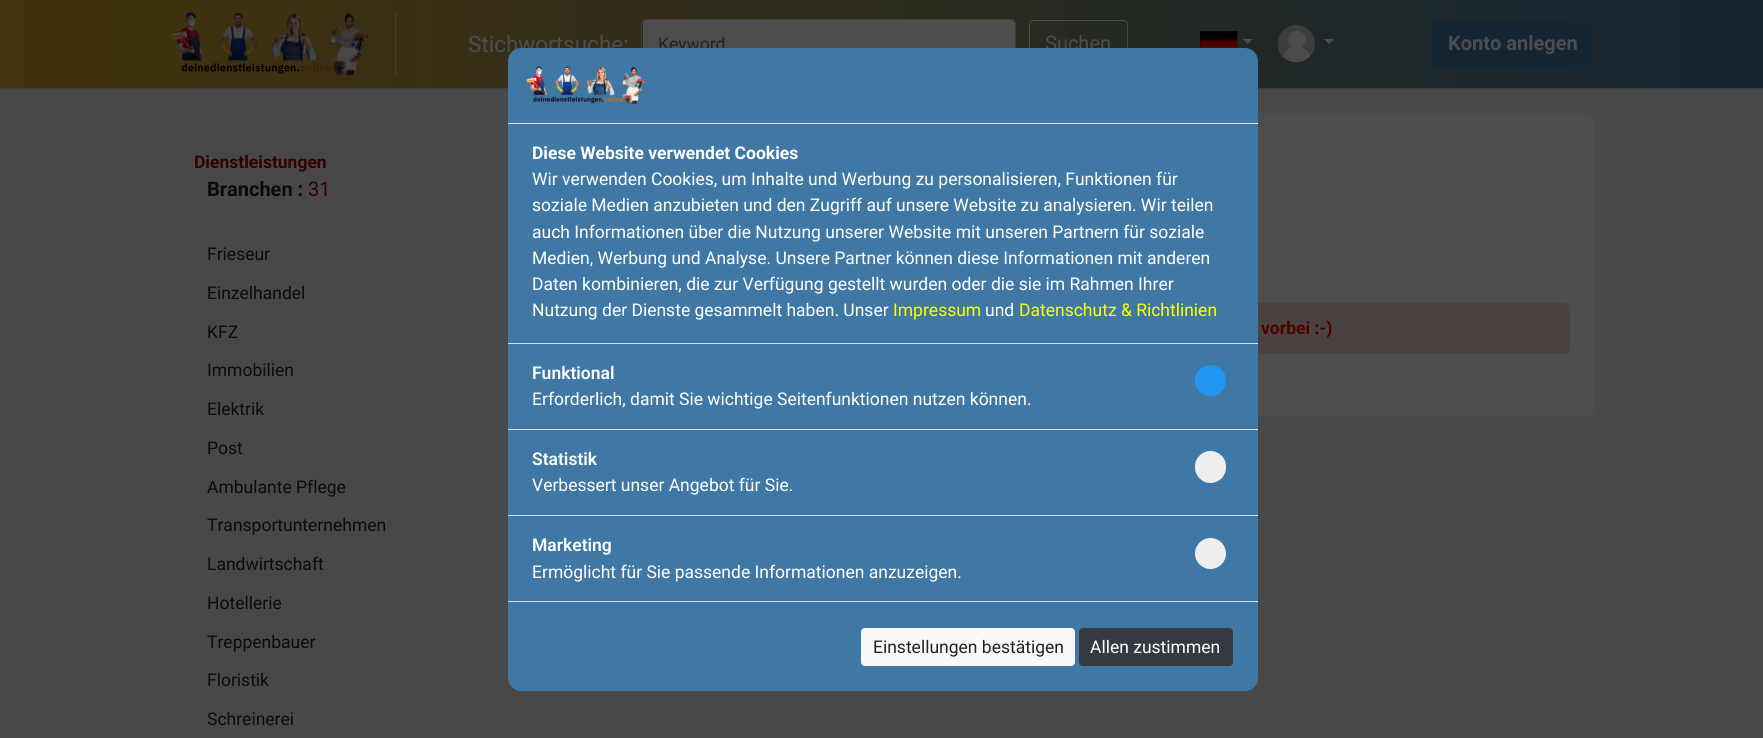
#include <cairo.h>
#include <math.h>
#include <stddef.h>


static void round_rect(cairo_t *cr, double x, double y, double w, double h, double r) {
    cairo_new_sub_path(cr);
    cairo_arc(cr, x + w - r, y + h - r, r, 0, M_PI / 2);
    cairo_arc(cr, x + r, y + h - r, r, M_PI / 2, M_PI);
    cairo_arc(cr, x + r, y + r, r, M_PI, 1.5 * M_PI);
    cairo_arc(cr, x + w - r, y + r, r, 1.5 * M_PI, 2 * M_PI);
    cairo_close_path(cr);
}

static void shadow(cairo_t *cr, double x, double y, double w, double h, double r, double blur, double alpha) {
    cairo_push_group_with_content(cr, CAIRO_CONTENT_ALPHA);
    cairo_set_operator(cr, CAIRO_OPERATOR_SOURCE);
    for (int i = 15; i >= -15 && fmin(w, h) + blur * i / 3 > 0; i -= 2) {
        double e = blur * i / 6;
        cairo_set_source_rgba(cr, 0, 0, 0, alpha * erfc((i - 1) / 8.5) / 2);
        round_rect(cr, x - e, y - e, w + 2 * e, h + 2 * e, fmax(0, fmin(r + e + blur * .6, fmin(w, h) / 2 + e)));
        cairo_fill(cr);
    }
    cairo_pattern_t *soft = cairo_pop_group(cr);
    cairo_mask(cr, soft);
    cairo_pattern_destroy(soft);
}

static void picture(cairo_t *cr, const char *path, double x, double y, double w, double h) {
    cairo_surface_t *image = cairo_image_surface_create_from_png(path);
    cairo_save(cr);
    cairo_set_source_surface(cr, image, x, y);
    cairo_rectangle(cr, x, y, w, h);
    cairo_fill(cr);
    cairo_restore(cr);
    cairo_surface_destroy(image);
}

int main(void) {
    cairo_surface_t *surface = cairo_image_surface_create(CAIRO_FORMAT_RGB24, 1763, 738);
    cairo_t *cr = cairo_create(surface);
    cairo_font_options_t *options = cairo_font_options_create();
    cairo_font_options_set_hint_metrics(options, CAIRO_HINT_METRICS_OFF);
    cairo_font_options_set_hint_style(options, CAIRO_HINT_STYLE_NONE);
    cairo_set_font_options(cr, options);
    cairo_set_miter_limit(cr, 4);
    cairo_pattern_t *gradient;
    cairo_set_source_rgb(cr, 0.282, 0.282, 0.282);
    cairo_paint(cr);
    cairo_set_source_rgb(cr, 0, 0, 0);
    shadow(cr, 0, 1, 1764, 88, 0, 0.5, 0.14);
    gradient = cairo_pattern_create_linear(0, 44, 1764, 44);
    cairo_pattern_add_color_stop_rgba(gradient, 0, 0.263, 0.196, 0.039, 1);
    cairo_pattern_add_color_stop_rgba(gradient, 1, 0.075, 0.141, 0.196, 1);
    cairo_set_source(cr, gradient);
    cairo_pattern_destroy(gradient);
    cairo_rectangle(cr, 0, 0, 1763, 88);
    cairo_fill(cr);
    cairo_set_source_rgb(cr, 0.247, 0.247, 0.247);
    cairo_rectangle(cr, 395, 13, 1, 62);
    cairo_fill(cr);
    picture(cr, "img1.png", 170, 12, 198, 63);
    cairo_select_font_face(cr, "Roboto", CAIRO_FONT_SLANT_NORMAL, CAIRO_FONT_WEIGHT_NORMAL);
    cairo_set_font_size(cr, 22.5);
    cairo_set_source_rgb(cr, 0.302, 0.302, 0.302);
    cairo_move_to(cr, 468, 52);
    cairo_show_text(cr, "Stichwortsuche:");
    round_rect(cr, 643, 20, 372, 48, 4);
    cairo_fill(cr);
    round_rect(cr, 641.5, 19.5, 374, 49, 4.5);
    cairo_set_source_rgb(cr, 0.243, 0.251, 0.255);
    cairo_set_line_width(cr, 1);
    cairo_stroke(cr);
    cairo_set_font_size(cr, 17.5);
    cairo_set_source_rgb(cr, 0.125, 0.137, 0.149);
    cairo_move_to(cr, 658, 50);
    cairo_show_text(cr, "Keyword");
    round_rect(cr, 1029.5, 20.5, 98, 47, 4.5);
    cairo_set_source_rgb(cr, 0.29, 0.294, 0.294);
    cairo_stroke(cr);
    cairo_set_font_size(cr, 20);
    cairo_set_source_rgb(cr, 0.302, 0.302, 0.302);
    cairo_move_to(cr, 1045, 50);
    cairo_show_text(cr, "Suchen");
    picture(cr, "img2.png", 1200, 31, 38, 17);
    cairo_new_path(cr);
    cairo_move_to(cr, 1242.5, 39);
    cairo_line_to(cr, 1252.5, 39);
    cairo_line_to(cr, 1247.5, 44);
    cairo_close_path(cr);
    cairo_fill(cr);
    picture(cr, "img3.png", 1277, 25, 38, 38);
    cairo_new_path(cr);
    cairo_move_to(cr, 1324, 39);
    cairo_line_to(cr, 1334, 39);
    cairo_line_to(cr, 1329, 44);
    cairo_close_path(cr);
    cairo_fill(cr);
    cairo_set_source_rgb(cr, 0.075, 0.141, 0.196);
    round_rect(cr, 1433, 20, 161, 48, 5);
    cairo_fill(cr);
    cairo_select_font_face(cr, "Roboto", CAIRO_FONT_SLANT_NORMAL, CAIRO_FONT_WEIGHT_BOLD);
    cairo_set_source_rgb(cr, 0.302, 0.302, 0.302);
    cairo_move_to(cr, 1448, 50);
    cairo_show_text(cr, "Konto anlegen");
    round_rect(cr, 535, 113, 1060, 303, 10);
    cairo_fill(cr);
    cairo_set_source_rgb(cr, 0.29, 0.255, 0.255);
    round_rect(cr, 560, 303, 1010, 51, 6);
    cairo_fill(cr);
    cairo_set_source_rgb(cr, 0.251, 0.471, 0.647);
    round_rect(cr, 508, 48, 750, 643, 13);
    cairo_fill(cr);
    cairo_set_source_rgb(cr, 0.886, 0.886, 0.886);
    cairo_rectangle(cr, 508, 123, 750, 1);
    cairo_fill(cr);
    picture(cr, "img4.png", 526, 66, 120, 38);
    cairo_set_source_rgb(cr, 0.871, 0.886, 0.902);
    cairo_rectangle(cr, 508, 343, 750, 1);
    cairo_fill(cr);
    cairo_set_font_size(cr, 17.5);
    cairo_set_source_rgb(cr, 1, 1, 1);
    cairo_move_to(cr, 532, 159);
    cairo_show_text(cr, "Diese Website verwendet Cookies");
    cairo_select_font_face(cr, "Roboto", CAIRO_FONT_SLANT_NORMAL, CAIRO_FONT_WEIGHT_NORMAL);
    cairo_move_to(cr, 532, 185);
    cairo_show_text(cr, "Wir verwenden Cookies, um Inhalte und Werbung zu personalisieren, Funktionen für");
    cairo_move_to(cr, 532, 211);
    cairo_show_text(cr, "soziale Medien anzubieten und den Zugriff auf unsere Website zu analysieren. Wir teilen");
    cairo_move_to(cr, 532, 238);
    cairo_show_text(cr, "auch Informationen über die Nutzung unserer Website mit unseren Partnern für soziale");
    cairo_move_to(cr, 532, 264);
    cairo_show_text(cr, "Medien, Werbung und Analyse. Unsere Partner können diese Informationen mit anderen");
    cairo_move_to(cr, 532, 290);
    cairo_show_text(cr, "Daten kombinieren, die zur Verfügung gestellt wurden oder die sie im Rahmen Ihrer");
    cairo_move_to(cr, 532, 316);
    cairo_show_text(cr, "Nutzung der Dienste gesammelt haben. Unser");
    cairo_set_source_rgb(cr, 1, 1, 0);
    cairo_move_to(cr, 893, 316);
    cairo_show_text(cr, "Impressum");
    cairo_set_source_rgb(cr, 1, 1, 1);
    cairo_move_to(cr, 985, 316);
    cairo_show_text(cr, "und");
    cairo_set_source_rgb(cr, 1, 1, 0);
    cairo_move_to(cr, 1019, 316);
    cairo_show_text(cr, "Datenschutz & Richtlinien");
    cairo_set_source_rgb(cr, 0.871, 0.886, 0.902);
    cairo_rectangle(cr, 508, 429, 750, 1);
    cairo_fill(cr);
    cairo_select_font_face(cr, "Roboto SemiBold", CAIRO_FONT_SLANT_NORMAL, CAIRO_FONT_WEIGHT_NORMAL);
    cairo_set_source_rgb(cr, 1, 1, 1);
    cairo_move_to(cr, 532, 379);
    cairo_show_text(cr, "Funktional");
    cairo_select_font_face(cr, "Roboto", CAIRO_FONT_SLANT_NORMAL, CAIRO_FONT_WEIGHT_NORMAL);
    cairo_move_to(cr, 532, 405);
    cairo_show_text(cr, "Erforderlich, damit Sie wichtige Seitenfunktionen nutzen können.");
    cairo_set_source_rgb(cr, 0.129, 0.588, 0.953);
    cairo_new_path(cr);
    cairo_arc(cr, 1210.5, 380.5, 15.5, 0, 2 * M_PI);
    cairo_fill(cr);
    cairo_set_source_rgb(cr, 0.871, 0.886, 0.902);
    cairo_rectangle(cr, 508, 515, 750, 1);
    cairo_fill(cr);
    cairo_select_font_face(cr, "Roboto SemiBold", CAIRO_FONT_SLANT_NORMAL, CAIRO_FONT_WEIGHT_NORMAL);
    cairo_set_source_rgb(cr, 1, 1, 1);
    cairo_move_to(cr, 532, 465);
    cairo_show_text(cr, "Statistik");
    cairo_select_font_face(cr, "Roboto", CAIRO_FONT_SLANT_NORMAL, CAIRO_FONT_WEIGHT_NORMAL);
    cairo_move_to(cr, 532, 491);
    cairo_show_text(cr, "Verbessert unser Angebot für Sie.");
    cairo_set_source_rgb(cr, 0.933, 0.933, 0.933);
    round_rect(cr, 1195, 451, 31, 32, 15.5);
    cairo_fill(cr);
    cairo_set_source_rgb(cr, 0.871, 0.886, 0.902);
    cairo_rectangle(cr, 508, 601, 750, 1);
    cairo_fill(cr);
    cairo_select_font_face(cr, "Roboto SemiBold", CAIRO_FONT_SLANT_NORMAL, CAIRO_FONT_WEIGHT_NORMAL);
    cairo_set_source_rgb(cr, 1, 1, 1);
    cairo_move_to(cr, 532, 551);
    cairo_show_text(cr, "Marketing");
    cairo_select_font_face(cr, "Roboto", CAIRO_FONT_SLANT_NORMAL, CAIRO_FONT_WEIGHT_NORMAL);
    cairo_move_to(cr, 532, 578);
    cairo_show_text(cr, "Ermöglicht für Sie passende Informationen anzuzeigen.");
    cairo_set_source_rgb(cr, 0.933, 0.933, 0.933);
    cairo_new_path(cr);
    cairo_arc(cr, 1210.5, 553.5, 15.5, 0, 2 * M_PI);
    cairo_fill(cr);
    cairo_set_source_rgb(cr, 0.973, 0.976, 0.98);
    round_rect(cr, 861.5, 628.5, 213, 37, 3.5);
    cairo_fill_preserve(cr);
    cairo_stroke(cr);
    cairo_set_source_rgb(cr, 0.125, 0.137, 0.149);
    cairo_move_to(cr, 873, 653);
    cairo_show_text(cr, "Einstellungen bestätigen");
    cairo_set_source_rgb(cr, 0.204, 0.227, 0.251);
    round_rect(cr, 1079.5, 628.5, 153, 37, 3.5);
    cairo_fill_preserve(cr);
    cairo_stroke(cr);
    cairo_set_source_rgb(cr, 1, 1, 1);
    cairo_move_to(cr, 1090, 653);
    cairo_show_text(cr, "Allen zustimmen");
    cairo_select_font_face(cr, "Roboto", CAIRO_FONT_SLANT_NORMAL, CAIRO_FONT_WEIGHT_BOLD);
    cairo_set_source_rgb(cr, 0.204, 0.004, 0.004);
    cairo_move_to(cr, 194, 168);
    cairo_show_text(cr, "Dienstleistungen");
    cairo_set_font_size(cr, 20);
    cairo_set_source_rgb(cr, 0.039, 0.043, 0.047);
    cairo_move_to(cr, 207, 196);
    cairo_show_text(cr, "Branchen :");
    cairo_select_font_face(cr, "Roboto", CAIRO_FONT_SLANT_NORMAL, CAIRO_FONT_WEIGHT_NORMAL);
    cairo_set_source_rgb(cr, 0.204, 0.004, 0.004);
    cairo_move_to(cr, 308, 196);
    cairo_show_text(cr, "31");
    cairo_set_font_size(cr, 17.5);
    cairo_set_source_rgb(cr, 0.039, 0.043, 0.047);
    cairo_move_to(cr, 207, 260);
    cairo_show_text(cr, "Frieseur");
    cairo_move_to(cr, 207, 299);
    cairo_show_text(cr, "Einzelhandel");
    cairo_move_to(cr, 207, 338);
    cairo_show_text(cr, "KFZ");
    cairo_move_to(cr, 207, 376);
    cairo_show_text(cr, "Immobilien");
    cairo_move_to(cr, 207, 415);
    cairo_show_text(cr, "Elektrik");
    cairo_move_to(cr, 207, 454);
    cairo_show_text(cr, "Post");
    cairo_move_to(cr, 207, 493);
    cairo_show_text(cr, "Ambulante Pflege");
    cairo_move_to(cr, 207, 531);
    cairo_show_text(cr, "Transportunternehmen");
    cairo_move_to(cr, 207, 570);
    cairo_show_text(cr, "Landwirtschaft");
    cairo_move_to(cr, 207, 609);
    cairo_show_text(cr, "Hotellerie");
    cairo_move_to(cr, 207, 648);
    cairo_show_text(cr, "Treppenbauer");
    cairo_move_to(cr, 207, 686);
    cairo_show_text(cr, "Floristik");
    cairo_move_to(cr, 207, 725);
    cairo_show_text(cr, "Schreinerei");
    cairo_select_font_face(cr, "Roboto", CAIRO_FONT_SLANT_NORMAL, CAIRO_FONT_WEIGHT_BOLD);
    cairo_set_source_rgb(cr, 0.302, 0, 0);
    cairo_move_to(cr, 1261, 334);
    cairo_show_text(cr, "vorbei :-)");
    cairo_surface_write_to_png(surface, "page.png");
    cairo_font_options_destroy(options);
    cairo_destroy(cr);
    cairo_surface_destroy(surface);
    return 0;
}
